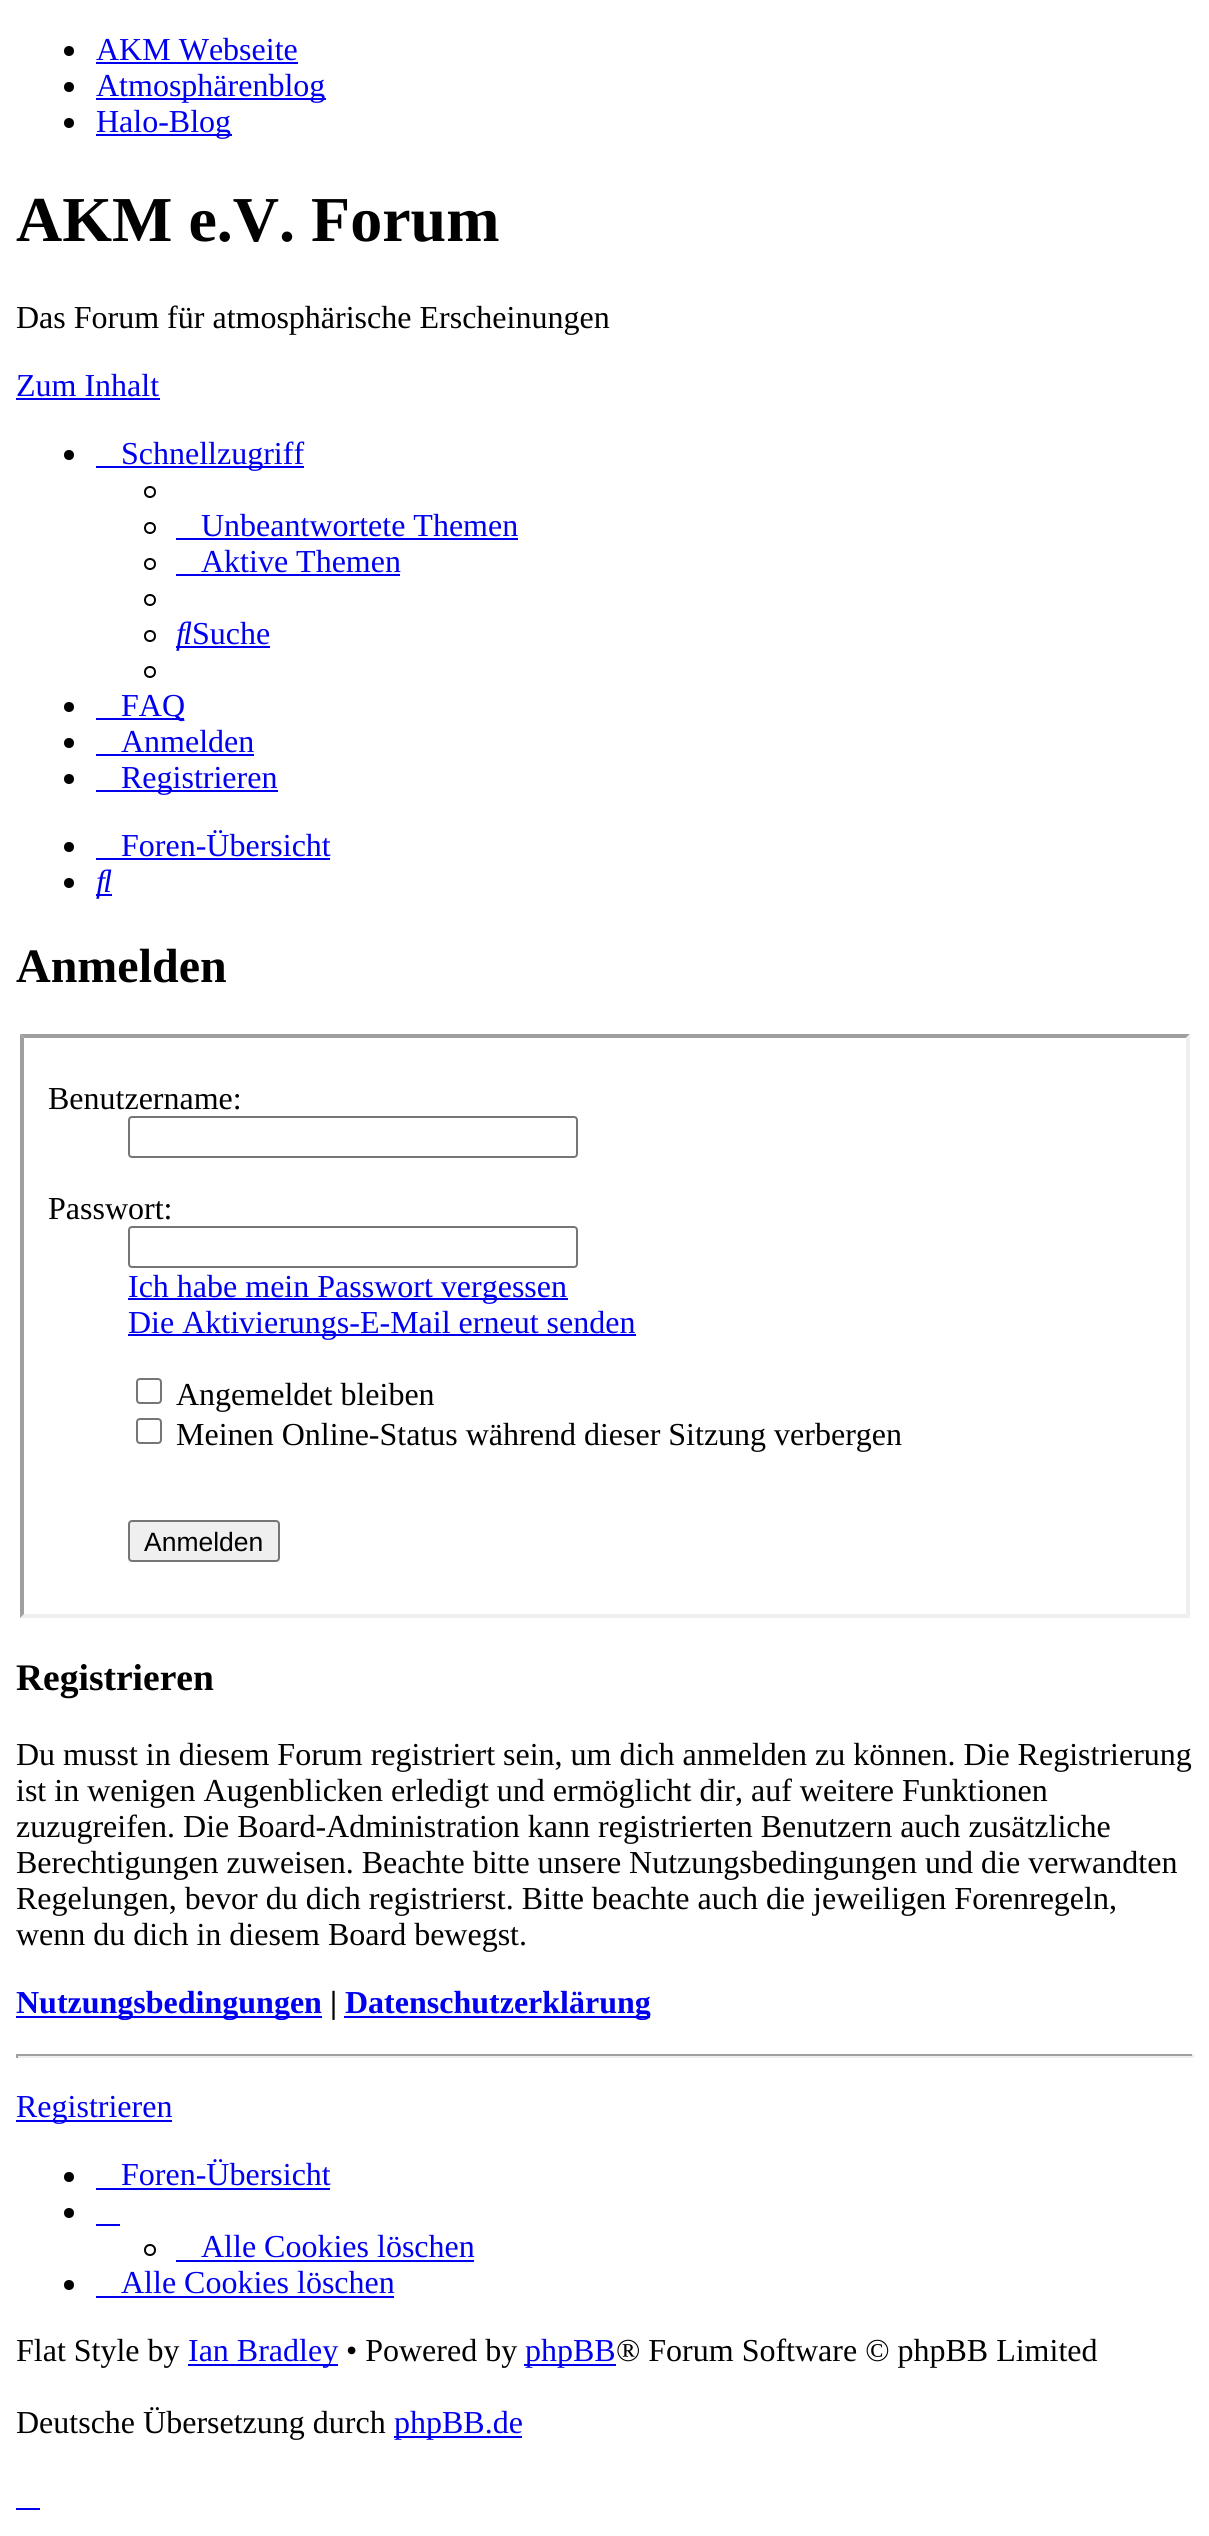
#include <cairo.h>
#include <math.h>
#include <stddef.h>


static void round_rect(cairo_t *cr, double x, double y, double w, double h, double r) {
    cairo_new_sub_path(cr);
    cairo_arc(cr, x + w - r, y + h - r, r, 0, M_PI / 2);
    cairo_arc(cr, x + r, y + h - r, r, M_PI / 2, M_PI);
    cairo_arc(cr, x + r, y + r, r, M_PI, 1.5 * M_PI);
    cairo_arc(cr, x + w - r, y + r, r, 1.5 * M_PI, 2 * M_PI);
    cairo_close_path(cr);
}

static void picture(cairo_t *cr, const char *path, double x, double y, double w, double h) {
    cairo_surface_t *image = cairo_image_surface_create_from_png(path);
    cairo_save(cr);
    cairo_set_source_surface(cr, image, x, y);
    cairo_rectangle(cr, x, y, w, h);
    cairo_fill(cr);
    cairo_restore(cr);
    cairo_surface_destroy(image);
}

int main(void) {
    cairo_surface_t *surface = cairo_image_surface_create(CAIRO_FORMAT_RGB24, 1209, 2536);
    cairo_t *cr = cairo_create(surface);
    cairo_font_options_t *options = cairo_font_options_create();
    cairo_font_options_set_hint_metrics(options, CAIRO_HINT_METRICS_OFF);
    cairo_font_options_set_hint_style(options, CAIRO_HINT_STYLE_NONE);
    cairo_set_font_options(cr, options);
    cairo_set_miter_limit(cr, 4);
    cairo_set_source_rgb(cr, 1, 1, 1);
    cairo_paint(cr);
    cairo_set_source_rgb(cr, 0, 0, 0);
    cairo_arc(cr, 69, 51, 5, 0, 2 * M_PI);
    cairo_fill(cr);
    cairo_select_font_face(cr, "Liberation Serif", CAIRO_FONT_SLANT_NORMAL, CAIRO_FONT_WEIGHT_NORMAL);
    cairo_set_font_size(cr, 32);
    cairo_set_source_rgb(cr, 0, 0, 0.933);
    cairo_move_to(cr, 96, 60);
    cairo_show_text(cr, "AKM Webseite");
    cairo_rectangle(cr, 96, 62, 202, 2);
    cairo_fill(cr);
    cairo_set_source_rgb(cr, 0, 0, 0);
    cairo_arc(cr, 69, 87, 5, 0, 2 * M_PI);
    cairo_fill(cr);
    cairo_set_source_rgb(cr, 0, 0, 0.933);
    cairo_rectangle(cr, 96, 98, 230, 2);
    cairo_fill(cr);
    cairo_move_to(cr, 96, 96);
    cairo_show_text(cr, "Atmosphärenblog");
    cairo_set_source_rgb(cr, 0, 0, 0);
    cairo_new_path(cr);
    cairo_arc(cr, 69, 123, 5, 0, 2 * M_PI);
    cairo_fill(cr);
    cairo_set_source_rgb(cr, 0, 0, 0.933);
    cairo_rectangle(cr, 96, 134, 136, 2);
    cairo_fill(cr);
    cairo_move_to(cr, 96, 132);
    cairo_show_text(cr, "Halo-Blog");
    cairo_select_font_face(cr, "Liberation Serif", CAIRO_FONT_SLANT_NORMAL, CAIRO_FONT_WEIGHT_BOLD);
    cairo_set_font_size(cr, 64);
    cairo_set_source_rgb(cr, 0, 0, 0);
    cairo_move_to(cr, 16, 241);
    cairo_show_text(cr, "AKM e.V. Forum");
    cairo_select_font_face(cr, "Liberation Serif", CAIRO_FONT_SLANT_NORMAL, CAIRO_FONT_WEIGHT_NORMAL);
    cairo_set_font_size(cr, 32);
    cairo_move_to(cr, 16, 328);
    cairo_show_text(cr, "Das Forum für atmosphärische Erscheinungen");
    cairo_set_source_rgb(cr, 0, 0, 0.933);
    cairo_move_to(cr, 16, 396);
    cairo_show_text(cr, "Zum Inhalt");
    cairo_rectangle(cr, 16, 398, 144, 2);
    cairo_fill(cr);
    cairo_set_source_rgb(cr, 0, 0, 0);
    cairo_arc(cr, 69, 455, 5, 0, 2 * M_PI);
    cairo_fill(cr);
    cairo_set_source_rgb(cr, 0, 0, 0.933);
    cairo_rectangle(cr, 96, 466, 208, 2);
    cairo_fill(cr);
    cairo_move_to(cr, 121, 464);
    cairo_show_text(cr, "Schnellzugriff");
    cairo_new_path(cr);
    cairo_arc(cr, 150, 492, 5, 0, 2 * M_PI);
    cairo_set_source_rgb(cr, 0, 0, 0);
    cairo_stroke(cr);
    cairo_arc(cr, 150, 528, 5, 0, 2 * M_PI);
    cairo_stroke(cr);
    cairo_set_source_rgb(cr, 0, 0, 0.933);
    cairo_move_to(cr, 201, 536);
    cairo_show_text(cr, "Unbeantwortete Themen");
    cairo_rectangle(cr, 176, 538, 342, 2);
    cairo_fill(cr);
    cairo_arc(cr, 150, 564, 5, 0, 2 * M_PI);
    cairo_set_source_rgb(cr, 0, 0, 0);
    cairo_stroke(cr);
    cairo_set_source_rgb(cr, 0, 0, 0.933);
    cairo_move_to(cr, 201, 572);
    cairo_show_text(cr, "Aktive Themen");
    cairo_rectangle(cr, 176, 574, 224, 2);
    cairo_fill(cr);
    cairo_arc(cr, 150, 600, 5, 0, 2 * M_PI);
    cairo_set_source_rgb(cr, 0, 0, 0);
    cairo_stroke(cr);
    cairo_arc(cr, 150, 636, 5, 0, 2 * M_PI);
    cairo_stroke(cr);
    cairo_set_source_rgb(cr, 0, 0, 0.933);
    cairo_rectangle(cr, 176, 646, 94, 2);
    cairo_fill(cr);
    picture(cr, "img1.png", 176, 621, 16, 30);
    cairo_move_to(cr, 192, 644);
    cairo_show_text(cr, "Suche");
    cairo_new_path(cr);
    cairo_arc(cr, 150, 672, 5, 0, 2 * M_PI);
    cairo_set_source_rgb(cr, 0, 0, 0);
    cairo_stroke(cr);
    cairo_arc(cr, 69, 707, 5, 0, 2 * M_PI);
    cairo_fill(cr);
    cairo_set_source_rgb(cr, 0, 0, 0.933);
    cairo_rectangle(cr, 96, 718, 88, 2);
    cairo_fill(cr);
    cairo_move_to(cr, 121, 716);
    cairo_show_text(cr, "FAQ");
    cairo_set_source_rgb(cr, 0, 0, 0);
    cairo_new_path(cr);
    cairo_arc(cr, 69, 743, 5, 0, 2 * M_PI);
    cairo_fill(cr);
    cairo_set_source_rgb(cr, 0, 0, 0.933);
    cairo_move_to(cr, 121, 752);
    cairo_show_text(cr, "Anmelden");
    cairo_rectangle(cr, 96, 754, 158, 2);
    cairo_fill(cr);
    cairo_set_source_rgb(cr, 0, 0, 0);
    cairo_arc(cr, 69, 779, 5, 0, 2 * M_PI);
    cairo_fill(cr);
    cairo_set_source_rgb(cr, 0, 0, 0.933);
    cairo_rectangle(cr, 96, 790, 182, 2);
    cairo_fill(cr);
    cairo_move_to(cr, 121, 788);
    cairo_show_text(cr, "Registrieren");
    cairo_set_source_rgb(cr, 0, 0, 0);
    cairo_new_path(cr);
    cairo_arc(cr, 69, 847, 5, 0, 2 * M_PI);
    cairo_fill(cr);
    cairo_set_source_rgb(cr, 0, 0, 0.933);
    cairo_move_to(cr, 121, 856);
    cairo_show_text(cr, "Foren-Übersicht");
    cairo_rectangle(cr, 96, 858, 234, 2);
    cairo_fill(cr);
    cairo_set_source_rgb(cr, 0, 0, 0);
    cairo_arc(cr, 69, 883, 5, 0, 2 * M_PI);
    cairo_fill(cr);
    cairo_set_source_rgb(cr, 0, 0, 0.933);
    cairo_rectangle(cr, 96, 894, 16, 2);
    cairo_fill(cr);
    picture(cr, "img1.png", 96, 869, 16, 30);
    cairo_select_font_face(cr, "Liberation Serif", CAIRO_FONT_SLANT_NORMAL, CAIRO_FONT_WEIGHT_BOLD);
    cairo_set_font_size(cr, 48);
    cairo_set_source_rgb(cr, 0, 0, 0);
    cairo_move_to(cr, 16, 982);
    cairo_show_text(cr, "Anmelden");
    cairo_set_source_rgb(cr, 0.624, 0.624, 0.624);
    cairo_new_path(cr);
    cairo_move_to(cr, 20, 1034);
    cairo_line_to(cr, 1190, 1034);
    cairo_line_to(cr, 1186, 1038);
    cairo_line_to(cr, 24, 1038);
    cairo_close_path(cr);
    cairo_fill(cr);
    cairo_set_source_rgb(cr, 0.937, 0.937, 0.937);
    cairo_new_path(cr);
    cairo_move_to(cr, 1190, 1034);
    cairo_line_to(cr, 1190, 1618);
    cairo_line_to(cr, 1186, 1614);
    cairo_line_to(cr, 1186, 1038);
    cairo_close_path(cr);
    cairo_fill(cr);
    cairo_new_path(cr);
    cairo_move_to(cr, 1190, 1618);
    cairo_line_to(cr, 20, 1618);
    cairo_line_to(cr, 24, 1614);
    cairo_line_to(cr, 1186, 1614);
    cairo_close_path(cr);
    cairo_fill(cr);
    cairo_set_source_rgb(cr, 0.624, 0.624, 0.624);
    cairo_new_path(cr);
    cairo_move_to(cr, 20, 1618);
    cairo_line_to(cr, 20, 1034);
    cairo_line_to(cr, 24, 1038);
    cairo_line_to(cr, 24, 1614);
    cairo_close_path(cr);
    cairo_fill(cr);
    cairo_select_font_face(cr, "Liberation Serif", CAIRO_FONT_SLANT_NORMAL, CAIRO_FONT_WEIGHT_NORMAL);
    cairo_set_font_size(cr, 32);
    cairo_set_source_rgb(cr, 0, 0, 0);
    cairo_move_to(cr, 48, 1109);
    cairo_show_text(cr, "Benutzername:");
    round_rect(cr, 129, 1117, 448, 40, 3);
    cairo_set_source_rgb(cr, 0.463, 0.463, 0.463);
    cairo_stroke(cr);
    cairo_set_source_rgb(cr, 0, 0, 0);
    cairo_move_to(cr, 48, 1219);
    cairo_show_text(cr, "Passwort:");
    round_rect(cr, 129, 1227, 448, 40, 3);
    cairo_set_source_rgb(cr, 0.463, 0.463, 0.463);
    cairo_stroke(cr);
    cairo_set_source_rgb(cr, 0, 0, 0.933);
    cairo_rectangle(cr, 128, 1298, 440, 2);
    cairo_fill(cr);
    cairo_move_to(cr, 128, 1297);
    cairo_show_text(cr, "Ich habe mein Passwort vergessen");
    cairo_rectangle(cr, 128, 1334, 508, 2);
    cairo_fill(cr);
    cairo_move_to(cr, 128, 1333);
    cairo_show_text(cr, "Die Aktivierungs-E-Mail erneut senden");
    round_rect(cr, 137, 1379, 24, 24, 3);
    cairo_set_source_rgb(cr, 0.463, 0.463, 0.463);
    cairo_stroke(cr);
    cairo_set_source_rgb(cr, 0, 0, 0);
    cairo_move_to(cr, 176, 1405);
    cairo_show_text(cr, "Angemeldet bleiben");
    round_rect(cr, 137, 1419, 24, 24, 3);
    cairo_set_source_rgb(cr, 0.463, 0.463, 0.463);
    cairo_stroke(cr);
    cairo_set_source_rgb(cr, 0, 0, 0);
    cairo_move_to(cr, 176, 1445);
    cairo_show_text(cr, "Meinen Online-Status während dieser Sitzung verbergen");
    cairo_set_source_rgb(cr, 0.937, 0.937, 0.937);
    round_rect(cr, 129, 1521, 150, 40, 3);
    cairo_fill_preserve(cr);
    cairo_set_source_rgb(cr, 0.463, 0.463, 0.463);
    cairo_stroke(cr);
    cairo_select_font_face(cr, "Liberation Sans", CAIRO_FONT_SLANT_NORMAL, CAIRO_FONT_WEIGHT_NORMAL);
    cairo_set_font_size(cr, 26.5);
    cairo_set_source_rgb(cr, 0, 0, 0);
    cairo_move_to(cr, 144, 1551);
    cairo_show_text(cr, "Anmelden");
    cairo_select_font_face(cr, "Liberation Serif", CAIRO_FONT_SLANT_NORMAL, CAIRO_FONT_WEIGHT_BOLD);
    cairo_set_font_size(cr, 37.5);
    cairo_move_to(cr, 16, 1690);
    cairo_show_text(cr, "Registrieren");
    cairo_select_font_face(cr, "Liberation Serif", CAIRO_FONT_SLANT_NORMAL, CAIRO_FONT_WEIGHT_NORMAL);
    cairo_set_font_size(cr, 32);
    cairo_move_to(cr, 16, 1765);
    cairo_show_text(cr, "Du musst in diesem Forum registriert sein, um dich anmelden zu können. Die Registrierung");
    cairo_move_to(cr, 16, 1801);
    cairo_show_text(cr, "ist in wenigen Augenblicken erledigt und ermöglicht dir, auf weitere Funktionen");
    cairo_move_to(cr, 16, 1837);
    cairo_show_text(cr, "zuzugreifen. Die Board-Administration kann registrierten Benutzern auch zusätzliche");
    cairo_move_to(cr, 16, 1873);
    cairo_show_text(cr, "Berechtigungen zuweisen. Beachte bitte unsere Nutzungsbedingungen und die verwandten");
    cairo_move_to(cr, 16, 1909);
    cairo_show_text(cr, "Regelungen, bevor du dich registrierst. Bitte beachte auch die jeweiligen Forenregeln,");
    cairo_move_to(cr, 16, 1945);
    cairo_show_text(cr, "wenn du dich in diesem Board bewegst.");
    cairo_set_source_rgb(cr, 0, 0, 0.933);
    cairo_rectangle(cr, 16, 2016, 306, 2);
    cairo_fill(cr);
    cairo_select_font_face(cr, "Liberation Serif", CAIRO_FONT_SLANT_NORMAL, CAIRO_FONT_WEIGHT_BOLD);
    cairo_move_to(cr, 16, 2013);
    cairo_show_text(cr, "Nutzungsbedingungen");
    cairo_set_source_rgb(cr, 0, 0, 0);
    cairo_move_to(cr, 330, 2013);
    cairo_show_text(cr, "|");
    cairo_set_source_rgb(cr, 0, 0, 0.933);
    cairo_rectangle(cr, 344, 2016, 306, 2);
    cairo_fill(cr);
    cairo_move_to(cr, 345, 2013);
    cairo_show_text(cr, "Datenschutzerklärung");
    cairo_set_source_rgb(cr, 0.624, 0.624, 0.624);
    cairo_rectangle(cr, 16, 2054, 1178, 2);
    cairo_fill(cr);
    cairo_set_source_rgb(cr, 0.933, 0.933, 0.933);
    cairo_rectangle(cr, 1192, 2054, 2, 4);
    cairo_fill(cr);
    cairo_rectangle(cr, 16, 2056, 1178, 2);
    cairo_fill(cr);
    cairo_set_source_rgb(cr, 0.624, 0.624, 0.624);
    cairo_rectangle(cr, 16, 2054, 2, 4);
    cairo_fill(cr);
    cairo_set_source_rgb(cr, 0, 0, 0.933);
    cairo_rectangle(cr, 16, 2120, 156, 2);
    cairo_fill(cr);
    cairo_select_font_face(cr, "Liberation Serif", CAIRO_FONT_SLANT_NORMAL, CAIRO_FONT_WEIGHT_NORMAL);
    cairo_move_to(cr, 16, 2117);
    cairo_show_text(cr, "Registrieren");
    cairo_set_source_rgb(cr, 0, 0, 0);
    cairo_new_path(cr);
    cairo_arc(cr, 69, 2177, 5, 0, 2 * M_PI);
    cairo_fill(cr);
    cairo_set_source_rgb(cr, 0, 0, 0.933);
    cairo_move_to(cr, 121, 2185);
    cairo_show_text(cr, "Foren-Übersicht");
    cairo_rectangle(cr, 96, 2188, 234, 2);
    cairo_fill(cr);
    cairo_set_source_rgb(cr, 0, 0, 0);
    cairo_arc(cr, 69, 2213, 5, 0, 2 * M_PI);
    cairo_fill(cr);
    cairo_set_source_rgb(cr, 0, 0, 0.933);
    cairo_rectangle(cr, 96, 2224, 24, 2);
    cairo_fill(cr);
    cairo_arc(cr, 150, 2250, 5, 0, 2 * M_PI);
    cairo_set_source_rgb(cr, 0, 0, 0);
    cairo_stroke(cr);
    cairo_set_source_rgb(cr, 0, 0, 0.933);
    cairo_move_to(cr, 201, 2257);
    cairo_show_text(cr, "Alle Cookies löschen");
    cairo_rectangle(cr, 176, 2260, 298, 2);
    cairo_fill(cr);
    cairo_set_source_rgb(cr, 0, 0, 0);
    cairo_arc(cr, 69, 2285, 5, 0, 2 * M_PI);
    cairo_fill(cr);
    cairo_set_source_rgb(cr, 0, 0, 0.933);
    cairo_move_to(cr, 121, 2293);
    cairo_show_text(cr, "Alle Cookies löschen");
    cairo_rectangle(cr, 96, 2296, 298, 2);
    cairo_fill(cr);
    cairo_set_source_rgb(cr, 0, 0, 0);
    cairo_move_to(cr, 16, 2361);
    cairo_show_text(cr, "Flat Style by");
    cairo_set_source_rgb(cr, 0, 0, 0.933);
    cairo_rectangle(cr, 188, 2364, 150, 2);
    cairo_fill(cr);
    cairo_move_to(cr, 188, 2361);
    cairo_show_text(cr, "Ian Bradley");
    cairo_set_source_rgb(cr, 0, 0, 0);
    cairo_move_to(cr, 346, 2361);
    cairo_show_text(cr, "• Powered by");
    cairo_set_source_rgb(cr, 0, 0, 0.933);
    cairo_rectangle(cr, 524, 2364, 92, 2);
    cairo_fill(cr);
    cairo_move_to(cr, 525, 2361);
    cairo_show_text(cr, "phpBB");
    cairo_set_source_rgb(cr, 0, 0, 0);
    cairo_move_to(cr, 616, 2361);
    cairo_show_text(cr, "® Forum Software © phpBB Limited");
    cairo_move_to(cr, 16, 2433);
    cairo_show_text(cr, "Deutsche Übersetzung durch");
    cairo_set_source_rgb(cr, 0, 0, 0.933);
    cairo_rectangle(cr, 394, 2436, 128, 2);
    cairo_fill(cr);
    cairo_move_to(cr, 394, 2433);
    cairo_show_text(cr, "phpBB.de");
    cairo_rectangle(cr, 16, 2508, 24, 2);
    cairo_fill(cr);
    cairo_surface_write_to_png(surface, "page.png");
    cairo_font_options_destroy(options);
    cairo_destroy(cr);
    cairo_surface_destroy(surface);
    return 0;
}
